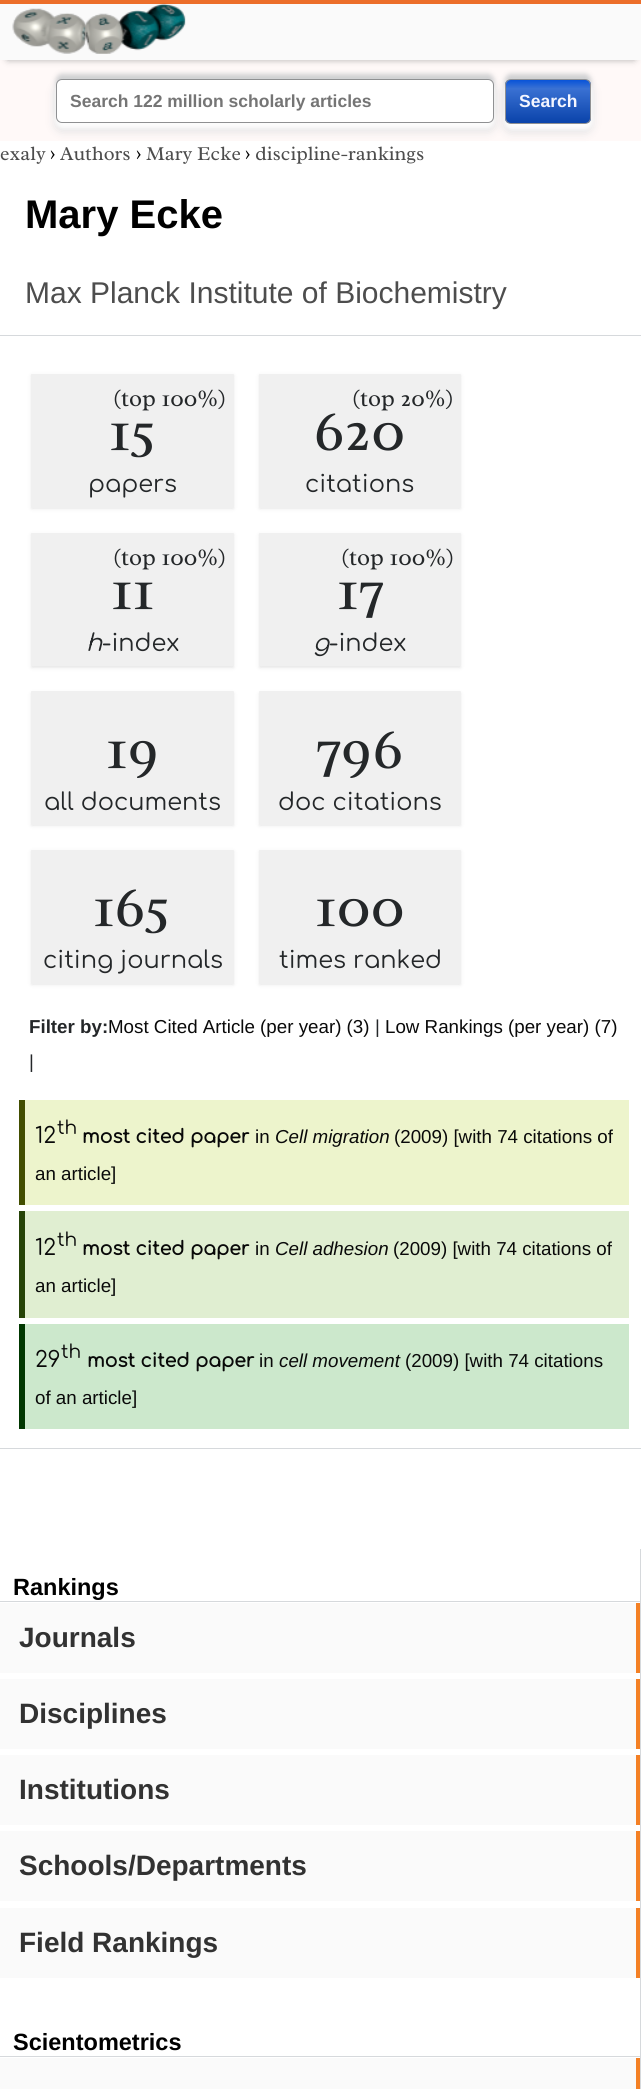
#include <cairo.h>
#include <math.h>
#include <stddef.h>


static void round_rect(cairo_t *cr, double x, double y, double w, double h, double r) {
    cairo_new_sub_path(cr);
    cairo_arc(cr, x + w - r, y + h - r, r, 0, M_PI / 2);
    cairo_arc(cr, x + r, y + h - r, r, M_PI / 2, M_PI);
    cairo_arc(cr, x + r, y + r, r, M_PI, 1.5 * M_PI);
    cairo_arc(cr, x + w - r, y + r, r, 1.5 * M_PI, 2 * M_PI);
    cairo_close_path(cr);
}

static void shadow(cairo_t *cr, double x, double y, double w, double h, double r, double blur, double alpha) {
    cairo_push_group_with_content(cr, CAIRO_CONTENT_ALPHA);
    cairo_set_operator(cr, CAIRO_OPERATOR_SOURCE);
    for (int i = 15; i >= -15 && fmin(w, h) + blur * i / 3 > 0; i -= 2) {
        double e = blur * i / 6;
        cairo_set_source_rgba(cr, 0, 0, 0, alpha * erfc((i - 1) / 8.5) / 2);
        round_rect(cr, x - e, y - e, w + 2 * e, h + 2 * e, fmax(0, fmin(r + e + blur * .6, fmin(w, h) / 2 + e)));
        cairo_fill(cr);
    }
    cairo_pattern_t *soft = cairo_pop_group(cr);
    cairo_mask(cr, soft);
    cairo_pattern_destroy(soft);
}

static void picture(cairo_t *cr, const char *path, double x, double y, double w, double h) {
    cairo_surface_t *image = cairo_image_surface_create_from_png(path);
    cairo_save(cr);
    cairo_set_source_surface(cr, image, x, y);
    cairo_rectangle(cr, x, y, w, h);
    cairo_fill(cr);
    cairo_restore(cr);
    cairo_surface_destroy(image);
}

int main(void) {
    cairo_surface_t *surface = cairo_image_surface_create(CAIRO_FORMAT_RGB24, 641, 2089);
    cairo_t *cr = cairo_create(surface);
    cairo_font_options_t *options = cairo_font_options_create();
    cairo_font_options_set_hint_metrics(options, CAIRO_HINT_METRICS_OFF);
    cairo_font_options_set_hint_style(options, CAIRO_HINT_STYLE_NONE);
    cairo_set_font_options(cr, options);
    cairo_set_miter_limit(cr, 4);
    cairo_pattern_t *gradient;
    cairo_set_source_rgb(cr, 1, 1, 1);
    cairo_paint(cr);
    cairo_set_source_rgb(cr, 1, 0.976, 0.969);
    cairo_rectangle(cr, 0, 60, 641, 81);
    cairo_fill(cr);
    cairo_set_source_rgb(cr, 0.467, 0.467, 0.467);
    shadow(cr, 8, 13, 626, 45, 0, 4, 1);
    cairo_set_source_rgb(cr, 0.98, 0.98, 0.98);
    cairo_rectangle(cr, 0, 4, 641, 56);
    cairo_fill(cr);
    cairo_set_source_rgb(cr, 0.925, 0.431, 0.165);
    cairo_rectangle(cr, 0, 0, 641, 4);
    cairo_fill(cr);
    picture(cr, "img1.png", 12, 3, 174, 51);
    cairo_set_source_rgb(cr, 0.808, 0.812, 0.82);
    shadow(cr, 56, 74, 438, 44, 6, 2.5, 1);
    cairo_set_source_rgb(cr, 0.839, 0.843, 0.851);
    shadow(cr, 56, 86, 438, 44, 6, 5, 1);
    cairo_set_source_rgb(cr, 0.988, 0.988, 0.988);
    shadow(cr, 55, 83, 440, 46, 8, 2, 1);
    cairo_set_source_rgb(cr, 1, 1, 1);
    round_rect(cr, 56.5, 79.5, 437, 43, 5.5);
    cairo_fill_preserve(cr);
    cairo_set_source_rgb(cr, 0.561, 0.565, 0.573);
    cairo_set_line_width(cr, 1);
    cairo_stroke(cr);
    cairo_select_font_face(cr, "Liberation Sans", CAIRO_FONT_SLANT_NORMAL, CAIRO_FONT_WEIGHT_BOLD);
    cairo_set_font_size(cr, 17.5);
    cairo_set_source_rgb(cr, 0.459, 0.459, 0.459);
    cairo_move_to(cr, 70, 107);
    cairo_show_text(cr, "Search 122 million scholarly articles");
    cairo_set_source_rgb(cr, 0.808, 0.812, 0.82);
    shadow(cr, 505, 74, 86, 45, 6, 2.5, 1);
    cairo_set_source_rgb(cr, 0.839, 0.843, 0.851);
    shadow(cr, 505, 86, 86, 45, 6, 5, 1);
    cairo_set_source_rgb(cr, 0.988, 0.988, 0.988);
    shadow(cr, 504, 83, 89, 47, 8, 2, 1);
    cairo_save(cr);
    round_rect(cr, 505, 79, 86, 45, 6);
    cairo_clip(cr);
    gradient = cairo_pattern_create_linear(548, 123, 548, 80);
    cairo_pattern_add_color_stop_rgba(gradient, 0, 0.039, 0.263, 0.667, 1);
    cairo_pattern_add_color_stop_rgba(gradient, 0.8, 0.227, 0.443, 0.827, 1);
    cairo_pattern_add_color_stop_rgba(gradient, 1, 0.031, 0.325, 0.847, 1);
    cairo_set_source(cr, gradient);
    cairo_pattern_destroy(gradient);
    cairo_rectangle(cr, 505, 80, 86, 43);
    cairo_fill(cr);
    cairo_restore(cr);
    round_rect(cr, 505.5, 79.5, 85, 44, 5.5);
    cairo_set_source_rgb(cr, 0.561, 0.565, 0.573);
    cairo_stroke(cr);
    cairo_set_source_rgb(cr, 0.957, 0.961, 1);
    cairo_move_to(cr, 519, 107);
    cairo_show_text(cr, "Search");
    cairo_select_font_face(cr, "Radley", CAIRO_FONT_SLANT_NORMAL, CAIRO_FONT_WEIGHT_NORMAL);
    cairo_set_font_size(cr, 20);
    cairo_set_source_rgb(cr, 0.302, 0.302, 0.302);
    cairo_move_to(cr, 0, 160);
    cairo_show_text(cr, "exaly");
    cairo_set_source_rgb(cr, 0, 0, 0);
    cairo_move_to(cr, 50, 160);
    cairo_show_text(cr, "›");
    cairo_set_source_rgb(cr, 0.302, 0.302, 0.302);
    cairo_move_to(cr, 60, 160);
    cairo_show_text(cr, "Authors");
    cairo_set_source_rgb(cr, 0, 0, 0);
    cairo_move_to(cr, 136, 160);
    cairo_show_text(cr, "›");
    cairo_set_source_rgb(cr, 0.302, 0.302, 0.302);
    cairo_move_to(cr, 146, 160);
    cairo_show_text(cr, "Mary Ecke");
    cairo_set_source_rgb(cr, 0, 0, 0);
    cairo_move_to(cr, 245, 160);
    cairo_show_text(cr, "›");
    cairo_set_source_rgb(cr, 0.302, 0.302, 0.302);
    cairo_move_to(cr, 255, 160);
    cairo_show_text(cr, "discipline-rankings");
    cairo_set_source_rgb(cr, 0.839, 0.851, 0.863);
    cairo_rectangle(cr, 0, 335, 641, 1);
    cairo_fill(cr);
    cairo_select_font_face(cr, "Liberation Sans", CAIRO_FONT_SLANT_NORMAL, CAIRO_FONT_WEIGHT_BOLD);
    cairo_set_font_size(cr, 40);
    cairo_set_source_rgb(cr, 0, 0, 0);
    cairo_move_to(cr, 25, 228);
    cairo_show_text(cr, "Mary Ecke");
    cairo_select_font_face(cr, "Liberation Sans", CAIRO_FONT_SLANT_NORMAL, CAIRO_FONT_WEIGHT_NORMAL);
    cairo_set_font_size(cr, 30);
    cairo_set_source_rgb(cr, 0.302, 0.302, 0.302);
    cairo_move_to(cr, 25, 303);
    cairo_show_text(cr, "Max Planck Institute of Biochemistry");
    cairo_set_source_rgb(cr, 0.839, 0.851, 0.863);
    cairo_rectangle(cr, 0, 1448, 641, 1);
    cairo_fill(cr);
    cairo_set_source_rgb(cr, 0, 0, 0);
    shadow(cr, 31, 375, 203, 134, 1, 2.5, 0.05);
    shadow(cr, 31, 375, 203, 134, 1, 1, 0.05);
    cairo_set_source_rgb(cr, 0.941, 0.941, 0.941);
    round_rect(cr, 31, 374, 203, 134, 1);
    cairo_fill(cr);
    cairo_select_font_face(cr, "Radley", CAIRO_FONT_SLANT_NORMAL, CAIRO_FONT_WEIGHT_NORMAL);
    cairo_set_font_size(cr, 24);
    cairo_set_source_rgb(cr, 0.141, 0.153, 0.161);
    cairo_move_to(cr, 113, 406);
    cairo_show_text(cr, "(top 100%)");
    cairo_set_font_size(cr, 60);
    cairo_move_to(cr, 109, 450);
    cairo_show_text(cr, "15");
    cairo_select_font_face(cr, "Comfortaa", CAIRO_FONT_SLANT_NORMAL, CAIRO_FONT_WEIGHT_NORMAL);
    cairo_set_font_size(cr, 24);
    cairo_move_to(cr, 88, 492);
    cairo_show_text(cr, "papers");
    cairo_set_source_rgb(cr, 0, 0, 0);
    shadow(cr, 259, 375, 202, 134, 1, 2.5, 0.05);
    shadow(cr, 259, 375, 202, 134, 1, 1, 0.05);
    cairo_set_source_rgb(cr, 0.941, 0.941, 0.941);
    round_rect(cr, 259, 374, 202, 134, 1);
    cairo_fill(cr);
    cairo_select_font_face(cr, "Radley", CAIRO_FONT_SLANT_NORMAL, CAIRO_FONT_WEIGHT_NORMAL);
    cairo_set_source_rgb(cr, 0.141, 0.153, 0.161);
    cairo_move_to(cr, 352, 406);
    cairo_show_text(cr, "(top 20%)");
    cairo_set_font_size(cr, 60);
    cairo_move_to(cr, 314, 450);
    cairo_show_text(cr, "620");
    cairo_select_font_face(cr, "Comfortaa", CAIRO_FONT_SLANT_NORMAL, CAIRO_FONT_WEIGHT_NORMAL);
    cairo_set_font_size(cr, 24);
    cairo_move_to(cr, 305, 492);
    cairo_show_text(cr, "citations");
    cairo_set_source_rgb(cr, 0, 0, 0);
    shadow(cr, 31, 534, 203, 134, 1, 2.5, 0.05);
    shadow(cr, 31, 534, 203, 134, 1, 1, 0.05);
    cairo_set_source_rgb(cr, 0.941, 0.941, 0.941);
    round_rect(cr, 31, 533, 203, 133, 1);
    cairo_fill(cr);
    cairo_select_font_face(cr, "Radley", CAIRO_FONT_SLANT_NORMAL, CAIRO_FONT_WEIGHT_NORMAL);
    cairo_set_source_rgb(cr, 0.141, 0.153, 0.161);
    cairo_move_to(cr, 113, 565);
    cairo_show_text(cr, "(top 100%)");
    cairo_set_font_size(cr, 60);
    cairo_move_to(cr, 111, 609);
    cairo_show_text(cr, "11");
    cairo_select_font_face(cr, "Comfortaa", CAIRO_FONT_SLANT_ITALIC, CAIRO_FONT_WEIGHT_NORMAL);
    cairo_set_font_size(cr, 24);
    cairo_move_to(cr, 86, 651);
    cairo_show_text(cr, "h");
    cairo_select_font_face(cr, "Comfortaa", CAIRO_FONT_SLANT_NORMAL, CAIRO_FONT_WEIGHT_NORMAL);
    cairo_move_to(cr, 102, 651);
    cairo_show_text(cr, "-index");
    cairo_set_source_rgb(cr, 0, 0, 0);
    shadow(cr, 259, 534, 202, 134, 1, 2.5, 0.05);
    shadow(cr, 259, 534, 202, 134, 1, 1, 0.05);
    cairo_set_source_rgb(cr, 0.941, 0.941, 0.941);
    round_rect(cr, 259, 533, 202, 133, 1);
    cairo_fill(cr);
    cairo_select_font_face(cr, "Radley", CAIRO_FONT_SLANT_NORMAL, CAIRO_FONT_WEIGHT_NORMAL);
    cairo_set_source_rgb(cr, 0.141, 0.153, 0.161);
    cairo_move_to(cr, 341, 565);
    cairo_show_text(cr, "(top 100%)");
    cairo_set_font_size(cr, 60);
    cairo_move_to(cr, 337, 609);
    cairo_show_text(cr, "17");
    cairo_select_font_face(cr, "Comfortaa", CAIRO_FONT_SLANT_ITALIC, CAIRO_FONT_WEIGHT_NORMAL);
    cairo_set_font_size(cr, 24);
    cairo_move_to(cr, 313, 651);
    cairo_show_text(cr, "g");
    cairo_select_font_face(cr, "Comfortaa", CAIRO_FONT_SLANT_NORMAL, CAIRO_FONT_WEIGHT_NORMAL);
    cairo_move_to(cr, 329, 651);
    cairo_show_text(cr, "-index");
    cairo_set_source_rgb(cr, 0, 0, 0);
    shadow(cr, 31, 693, 203, 133, 1, 2.5, 0.05);
    shadow(cr, 31, 693, 203, 133, 1, 1, 0.05);
    cairo_set_source_rgb(cr, 0.941, 0.941, 0.941);
    round_rect(cr, 31, 691, 203, 134, 1);
    cairo_fill(cr);
    cairo_select_font_face(cr, "Radley", CAIRO_FONT_SLANT_NORMAL, CAIRO_FONT_WEIGHT_NORMAL);
    cairo_set_font_size(cr, 60);
    cairo_set_source_rgb(cr, 0.141, 0.153, 0.161);
    cairo_move_to(cr, 106, 768);
    cairo_show_text(cr, "19");
    cairo_select_font_face(cr, "Comfortaa", CAIRO_FONT_SLANT_NORMAL, CAIRO_FONT_WEIGHT_NORMAL);
    cairo_set_font_size(cr, 24);
    cairo_move_to(cr, 44, 810);
    cairo_show_text(cr, "all documents");
    cairo_set_source_rgb(cr, 0, 0, 0);
    shadow(cr, 259, 693, 202, 133, 1, 2.5, 0.05);
    shadow(cr, 259, 693, 202, 133, 1, 1, 0.05);
    cairo_set_source_rgb(cr, 0.941, 0.941, 0.941);
    round_rect(cr, 259, 691, 202, 134, 1);
    cairo_fill(cr);
    cairo_select_font_face(cr, "Radley", CAIRO_FONT_SLANT_NORMAL, CAIRO_FONT_WEIGHT_NORMAL);
    cairo_set_font_size(cr, 60);
    cairo_set_source_rgb(cr, 0.141, 0.153, 0.161);
    cairo_move_to(cr, 316, 768);
    cairo_show_text(cr, "796");
    cairo_select_font_face(cr, "Comfortaa", CAIRO_FONT_SLANT_NORMAL, CAIRO_FONT_WEIGHT_NORMAL);
    cairo_set_font_size(cr, 24);
    cairo_move_to(cr, 278, 810);
    cairo_show_text(cr, "doc citations");
    cairo_set_source_rgb(cr, 0, 0, 0);
    shadow(cr, 31, 851, 203, 134, 1, 2.5, 0.05);
    shadow(cr, 31, 851, 203, 134, 1, 1, 0.05);
    cairo_set_source_rgb(cr, 0.941, 0.941, 0.941);
    round_rect(cr, 31, 850, 203, 134, 1);
    cairo_fill(cr);
    cairo_select_font_face(cr, "Radley", CAIRO_FONT_SLANT_NORMAL, CAIRO_FONT_WEIGHT_NORMAL);
    cairo_set_font_size(cr, 60);
    cairo_set_source_rgb(cr, 0.141, 0.153, 0.161);
    cairo_move_to(cr, 93, 926);
    cairo_show_text(cr, "165");
    cairo_select_font_face(cr, "Comfortaa", CAIRO_FONT_SLANT_NORMAL, CAIRO_FONT_WEIGHT_NORMAL);
    cairo_set_font_size(cr, 24);
    cairo_move_to(cr, 43, 968);
    cairo_show_text(cr, "citing journals");
    cairo_set_source_rgb(cr, 0, 0, 0);
    shadow(cr, 259, 851, 202, 134, 1, 2.5, 0.05);
    shadow(cr, 259, 851, 202, 134, 1, 1, 0.05);
    cairo_set_source_rgb(cr, 0.941, 0.941, 0.941);
    round_rect(cr, 259, 850, 202, 134, 1);
    cairo_fill(cr);
    cairo_select_font_face(cr, "Radley", CAIRO_FONT_SLANT_NORMAL, CAIRO_FONT_WEIGHT_NORMAL);
    cairo_set_font_size(cr, 60);
    cairo_set_source_rgb(cr, 0.141, 0.153, 0.161);
    cairo_move_to(cr, 315, 926);
    cairo_show_text(cr, "100");
    cairo_select_font_face(cr, "Comfortaa", CAIRO_FONT_SLANT_NORMAL, CAIRO_FONT_WEIGHT_NORMAL);
    cairo_set_font_size(cr, 24);
    cairo_move_to(cr, 279, 968);
    cairo_show_text(cr, "times ranked");
    cairo_select_font_face(cr, "Liberation Sans", CAIRO_FONT_SLANT_NORMAL, CAIRO_FONT_WEIGHT_BOLD);
    cairo_set_font_size(cr, 18.75);
    cairo_move_to(cr, 29, 1033);
    cairo_show_text(cr, "Filter by:");
    cairo_select_font_face(cr, "Liberation Sans", CAIRO_FONT_SLANT_NORMAL, CAIRO_FONT_WEIGHT_NORMAL);
    cairo_set_source_rgb(cr, 0.039, 0.039, 0.039);
    cairo_move_to(cr, 108, 1033);
    cairo_show_text(cr, "Most Cited Article (per year) (3)");
    cairo_set_source_rgb(cr, 0.141, 0.153, 0.161);
    cairo_move_to(cr, 375, 1033);
    cairo_show_text(cr, "|");
    cairo_set_source_rgb(cr, 0.039, 0.039, 0.039);
    cairo_move_to(cr, 385, 1033);
    cairo_show_text(cr, "Low Rankings (per year) (7)");
    cairo_set_source_rgb(cr, 0.141, 0.153, 0.161);
    cairo_move_to(cr, 29, 1068);
    cairo_show_text(cr, "|");
    cairo_set_source_rgb(cr, 0.929, 0.957, 0.8);
    cairo_rectangle(cr, 25, 1100, 604, 105);
    cairo_fill(cr);
    cairo_set_source_rgb(cr, 0.259, 0.306, 0);
    cairo_rectangle(cr, 19, 1100, 6, 105);
    cairo_fill(cr);
    cairo_select_font_face(cr, "Comfortaa", CAIRO_FONT_SLANT_NORMAL, CAIRO_FONT_WEIGHT_NORMAL);
    cairo_set_font_size(cr, 22);
    cairo_set_source_rgb(cr, 0.039, 0.039, 0.039);
    cairo_move_to(cr, 35, 1143);
    cairo_show_text(cr, "12");
    cairo_set_font_size(cr, 18.75);
    cairo_move_to(cr, 57, 1134);
    cairo_show_text(cr, "th");
    cairo_select_font_face(cr, "Comfortaa", CAIRO_FONT_SLANT_NORMAL, CAIRO_FONT_WEIGHT_BOLD);
    cairo_move_to(cr, 82, 1143);
    cairo_show_text(cr, "most cited paper");
    cairo_select_font_face(cr, "Liberation Sans", CAIRO_FONT_SLANT_NORMAL, CAIRO_FONT_WEIGHT_NORMAL);
    cairo_move_to(cr, 255, 1143);
    cairo_show_text(cr, "in");
    cairo_select_font_face(cr, "Liberation Sans", CAIRO_FONT_SLANT_ITALIC, CAIRO_FONT_WEIGHT_NORMAL);
    cairo_move_to(cr, 275, 1143);
    cairo_show_text(cr, "Cell migration");
    cairo_select_font_face(cr, "Liberation Sans", CAIRO_FONT_SLANT_NORMAL, CAIRO_FONT_WEIGHT_NORMAL);
    cairo_move_to(cr, 394, 1143);
    cairo_show_text(cr, "(2009) [with 74 citations of");
    cairo_move_to(cr, 35, 1180);
    cairo_show_text(cr, "an article]");
    cairo_set_source_rgb(cr, 0.878, 0.933, 0.82);
    cairo_rectangle(cr, 25, 1211, 604, 107);
    cairo_fill(cr);
    cairo_set_source_rgb(cr, 0.149, 0.267, 0.035);
    cairo_rectangle(cr, 19, 1211, 6, 107);
    cairo_fill(cr);
    cairo_select_font_face(cr, "Comfortaa", CAIRO_FONT_SLANT_NORMAL, CAIRO_FONT_WEIGHT_NORMAL);
    cairo_set_font_size(cr, 22);
    cairo_set_source_rgb(cr, 0.039, 0.039, 0.039);
    cairo_move_to(cr, 35, 1255);
    cairo_show_text(cr, "12");
    cairo_set_font_size(cr, 18.75);
    cairo_move_to(cr, 57, 1246);
    cairo_show_text(cr, "th");
    cairo_select_font_face(cr, "Comfortaa", CAIRO_FONT_SLANT_NORMAL, CAIRO_FONT_WEIGHT_BOLD);
    cairo_move_to(cr, 82, 1255);
    cairo_show_text(cr, "most cited paper");
    cairo_select_font_face(cr, "Liberation Sans", CAIRO_FONT_SLANT_NORMAL, CAIRO_FONT_WEIGHT_NORMAL);
    cairo_move_to(cr, 255, 1255);
    cairo_show_text(cr, "in");
    cairo_select_font_face(cr, "Liberation Sans", CAIRO_FONT_SLANT_ITALIC, CAIRO_FONT_WEIGHT_NORMAL);
    cairo_move_to(cr, 275, 1255);
    cairo_show_text(cr, "Cell adhesion");
    cairo_select_font_face(cr, "Liberation Sans", CAIRO_FONT_SLANT_NORMAL, CAIRO_FONT_WEIGHT_NORMAL);
    cairo_move_to(cr, 393, 1255);
    cairo_show_text(cr, "(2009) [with 74 citations of");
    cairo_move_to(cr, 35, 1292);
    cairo_show_text(cr, "an article]");
    cairo_set_source_rgb(cr, 0.8, 0.91, 0.8);
    cairo_rectangle(cr, 25, 1324, 604, 105);
    cairo_fill(cr);
    cairo_set_source_rgb(cr, 0, 0.216, 0);
    cairo_rectangle(cr, 19, 1324, 6, 105);
    cairo_fill(cr);
    cairo_select_font_face(cr, "Comfortaa", CAIRO_FONT_SLANT_NORMAL, CAIRO_FONT_WEIGHT_NORMAL);
    cairo_set_font_size(cr, 22);
    cairo_set_source_rgb(cr, 0.039, 0.039, 0.039);
    cairo_move_to(cr, 35, 1367);
    cairo_show_text(cr, "29");
    cairo_set_font_size(cr, 18.75);
    cairo_move_to(cr, 61, 1358);
    cairo_show_text(cr, "th");
    cairo_select_font_face(cr, "Comfortaa", CAIRO_FONT_SLANT_NORMAL, CAIRO_FONT_WEIGHT_BOLD);
    cairo_move_to(cr, 87, 1367);
    cairo_show_text(cr, "most cited paper");
    cairo_select_font_face(cr, "Liberation Sans", CAIRO_FONT_SLANT_NORMAL, CAIRO_FONT_WEIGHT_NORMAL);
    cairo_move_to(cr, 259, 1367);
    cairo_show_text(cr, "in");
    cairo_select_font_face(cr, "Liberation Sans", CAIRO_FONT_SLANT_ITALIC, CAIRO_FONT_WEIGHT_NORMAL);
    cairo_move_to(cr, 279, 1367);
    cairo_show_text(cr, "cell movement");
    cairo_select_font_face(cr, "Liberation Sans", CAIRO_FONT_SLANT_NORMAL, CAIRO_FONT_WEIGHT_NORMAL);
    cairo_move_to(cr, 405, 1367);
    cairo_show_text(cr, "(2009) [with 74 citations");
    cairo_move_to(cr, 35, 1404);
    cairo_show_text(cr, "of an article]");
    cairo_set_source_rgb(cr, 0.839, 0.851, 0.863);
    cairo_rectangle(cr, 640, 1549, 1, 540);
    cairo_fill(cr);
    cairo_rectangle(cr, 0, 1601, 640, 1);
    cairo_fill(cr);
    cairo_select_font_face(cr, "Liberation Sans", CAIRO_FONT_SLANT_NORMAL, CAIRO_FONT_WEIGHT_BOLD);
    cairo_set_font_size(cr, 23.5);
    cairo_set_source_rgb(cr, 0, 0, 0);
    cairo_move_to(cr, 13, 1595);
    cairo_show_text(cr, "Rankings");
    cairo_set_source_rgb(cr, 0.98, 0.98, 0.98);
    cairo_rectangle(cr, 0, 1603, 636, 70);
    cairo_fill(cr);
    cairo_set_source_rgb(cr, 0.957, 0.502, 0.141);
    cairo_rectangle(cr, 636, 1603, 4, 70);
    cairo_fill(cr);
    cairo_set_font_size(cr, 28);
    cairo_set_source_rgb(cr, 0.196, 0.196, 0.196);
    cairo_move_to(cr, 19, 1647);
    cairo_show_text(cr, "Journals");
    cairo_set_source_rgb(cr, 0.98, 0.98, 0.98);
    cairo_rectangle(cr, 0, 1679, 636, 70);
    cairo_fill(cr);
    cairo_set_source_rgb(cr, 0.957, 0.502, 0.141);
    cairo_rectangle(cr, 636, 1679, 4, 70);
    cairo_fill(cr);
    cairo_set_source_rgb(cr, 0.196, 0.196, 0.196);
    cairo_move_to(cr, 19, 1723);
    cairo_show_text(cr, "Disciplines");
    cairo_set_source_rgb(cr, 0.98, 0.98, 0.98);
    cairo_rectangle(cr, 0, 1755, 636, 70);
    cairo_fill(cr);
    cairo_set_source_rgb(cr, 0.957, 0.502, 0.141);
    cairo_rectangle(cr, 636, 1755, 4, 70);
    cairo_fill(cr);
    cairo_set_source_rgb(cr, 0.196, 0.196, 0.196);
    cairo_move_to(cr, 19, 1799);
    cairo_show_text(cr, "Institutions");
    cairo_set_source_rgb(cr, 0.98, 0.98, 0.98);
    cairo_rectangle(cr, 0, 1831, 636, 70);
    cairo_fill(cr);
    cairo_set_source_rgb(cr, 0.957, 0.502, 0.141);
    cairo_rectangle(cr, 636, 1831, 4, 70);
    cairo_fill(cr);
    cairo_set_source_rgb(cr, 0.196, 0.196, 0.196);
    cairo_move_to(cr, 19, 1875);
    cairo_show_text(cr, "Schools/Departments");
    cairo_set_source_rgb(cr, 0.98, 0.98, 0.98);
    cairo_rectangle(cr, 0, 1908, 636, 70);
    cairo_fill(cr);
    cairo_set_source_rgb(cr, 0.957, 0.502, 0.141);
    cairo_rectangle(cr, 636, 1908, 4, 70);
    cairo_fill(cr);
    cairo_set_source_rgb(cr, 0.196, 0.196, 0.196);
    cairo_move_to(cr, 19, 1952);
    cairo_show_text(cr, "Field Rankings");
    cairo_set_source_rgb(cr, 0.839, 0.851, 0.863);
    cairo_rectangle(cr, 0, 2056, 640, 1);
    cairo_fill(cr);
    cairo_set_font_size(cr, 23.5);
    cairo_set_source_rgb(cr, 0, 0, 0);
    cairo_move_to(cr, 13, 2050);
    cairo_show_text(cr, "Scientometrics");
    cairo_set_source_rgb(cr, 0.98, 0.98, 0.98);
    cairo_rectangle(cr, 0, 2058, 636, 31);
    cairo_fill(cr);
    cairo_set_source_rgb(cr, 0.957, 0.502, 0.141);
    cairo_rectangle(cr, 636, 2058, 4, 31);
    cairo_fill(cr);
    cairo_surface_write_to_png(surface, "page.png");
    cairo_font_options_destroy(options);
    cairo_destroy(cr);
    cairo_surface_destroy(surface);
    return 0;
}
